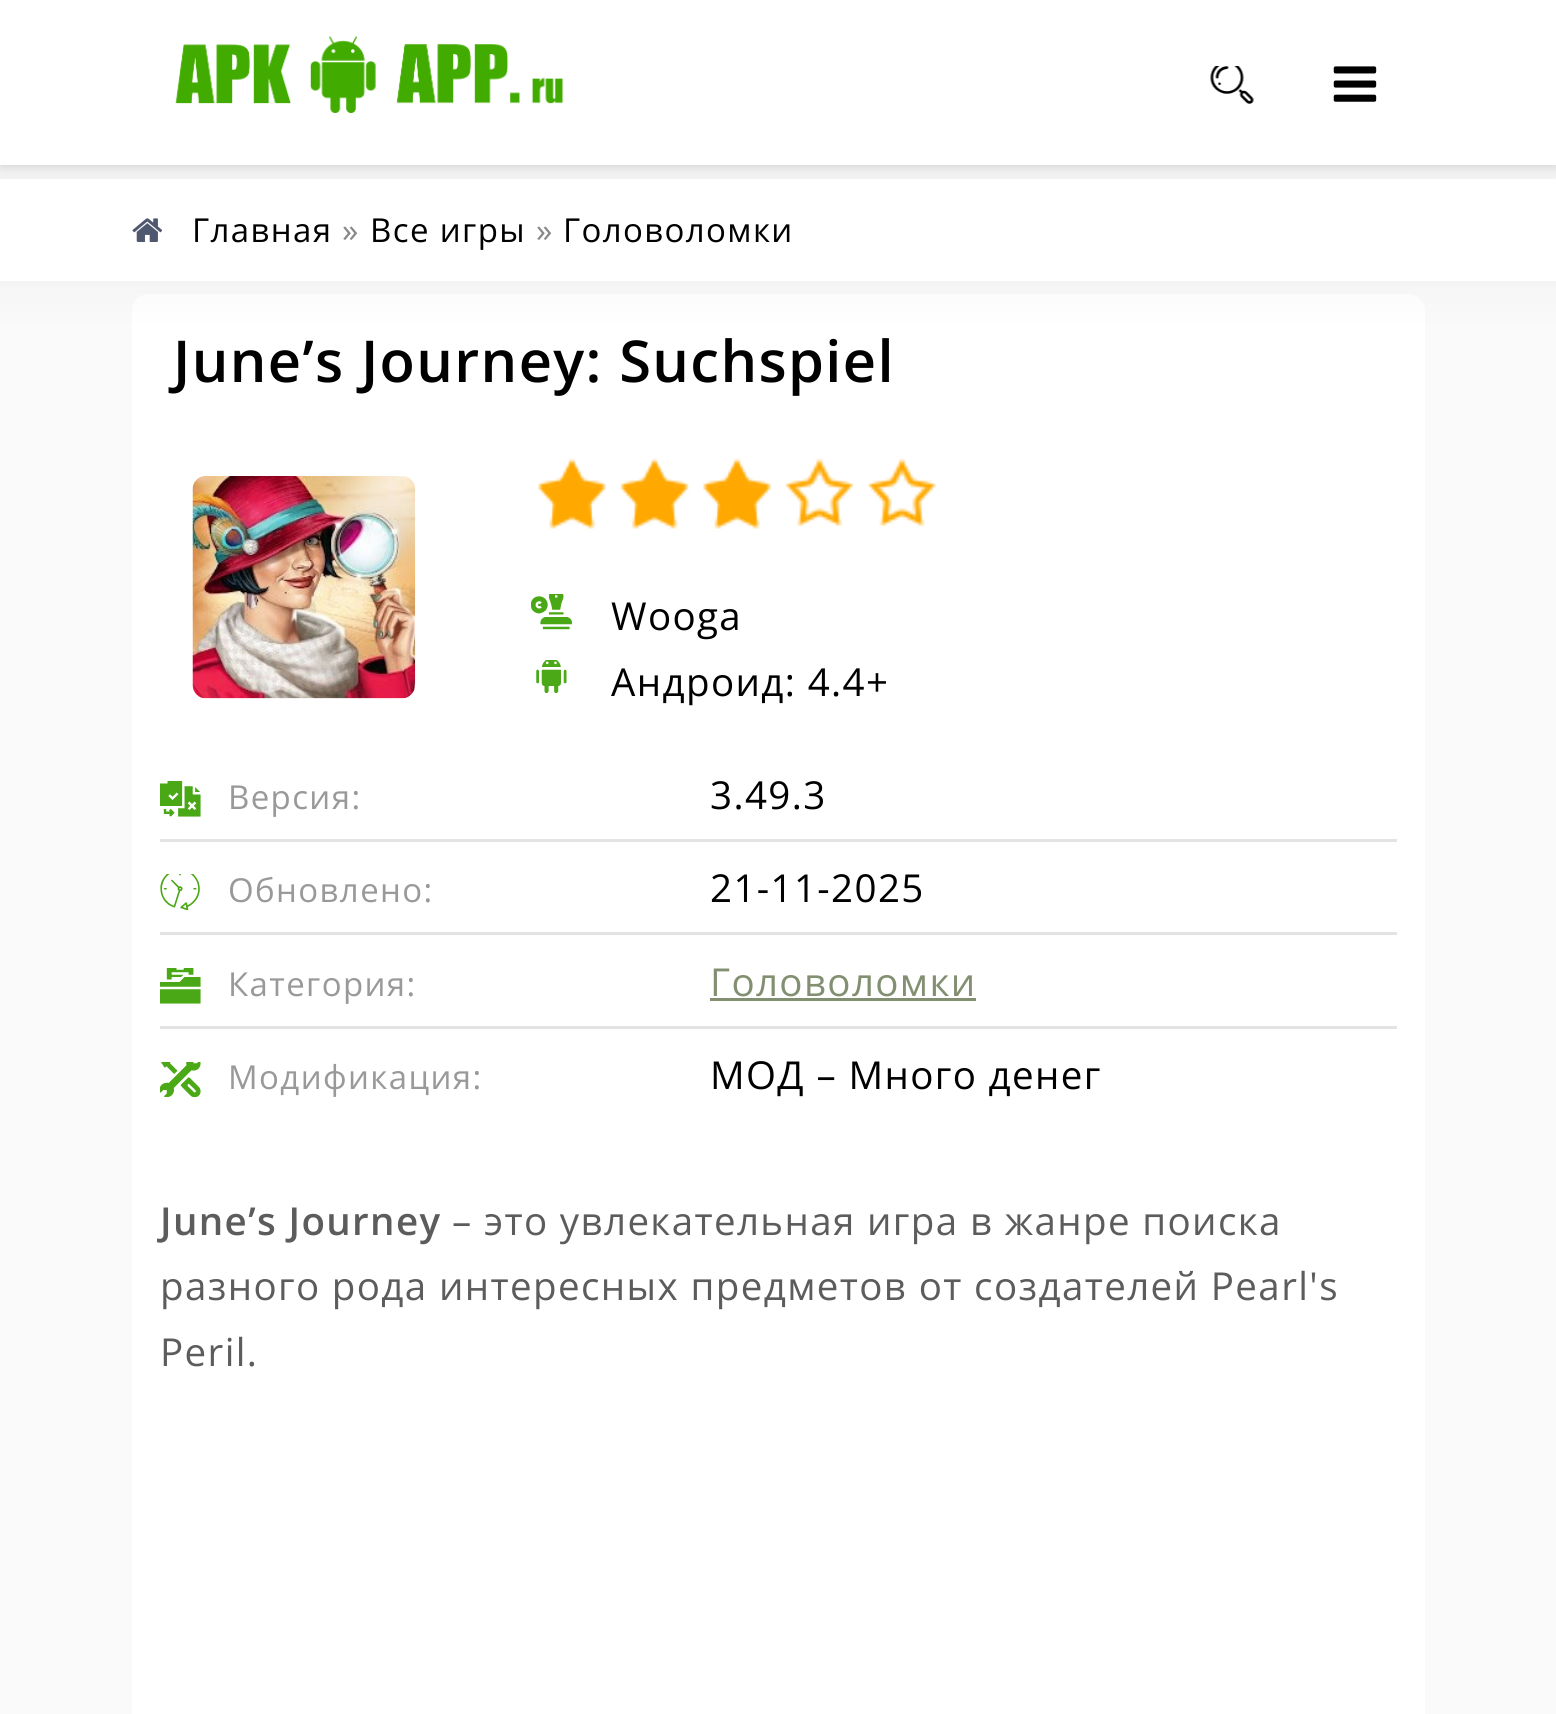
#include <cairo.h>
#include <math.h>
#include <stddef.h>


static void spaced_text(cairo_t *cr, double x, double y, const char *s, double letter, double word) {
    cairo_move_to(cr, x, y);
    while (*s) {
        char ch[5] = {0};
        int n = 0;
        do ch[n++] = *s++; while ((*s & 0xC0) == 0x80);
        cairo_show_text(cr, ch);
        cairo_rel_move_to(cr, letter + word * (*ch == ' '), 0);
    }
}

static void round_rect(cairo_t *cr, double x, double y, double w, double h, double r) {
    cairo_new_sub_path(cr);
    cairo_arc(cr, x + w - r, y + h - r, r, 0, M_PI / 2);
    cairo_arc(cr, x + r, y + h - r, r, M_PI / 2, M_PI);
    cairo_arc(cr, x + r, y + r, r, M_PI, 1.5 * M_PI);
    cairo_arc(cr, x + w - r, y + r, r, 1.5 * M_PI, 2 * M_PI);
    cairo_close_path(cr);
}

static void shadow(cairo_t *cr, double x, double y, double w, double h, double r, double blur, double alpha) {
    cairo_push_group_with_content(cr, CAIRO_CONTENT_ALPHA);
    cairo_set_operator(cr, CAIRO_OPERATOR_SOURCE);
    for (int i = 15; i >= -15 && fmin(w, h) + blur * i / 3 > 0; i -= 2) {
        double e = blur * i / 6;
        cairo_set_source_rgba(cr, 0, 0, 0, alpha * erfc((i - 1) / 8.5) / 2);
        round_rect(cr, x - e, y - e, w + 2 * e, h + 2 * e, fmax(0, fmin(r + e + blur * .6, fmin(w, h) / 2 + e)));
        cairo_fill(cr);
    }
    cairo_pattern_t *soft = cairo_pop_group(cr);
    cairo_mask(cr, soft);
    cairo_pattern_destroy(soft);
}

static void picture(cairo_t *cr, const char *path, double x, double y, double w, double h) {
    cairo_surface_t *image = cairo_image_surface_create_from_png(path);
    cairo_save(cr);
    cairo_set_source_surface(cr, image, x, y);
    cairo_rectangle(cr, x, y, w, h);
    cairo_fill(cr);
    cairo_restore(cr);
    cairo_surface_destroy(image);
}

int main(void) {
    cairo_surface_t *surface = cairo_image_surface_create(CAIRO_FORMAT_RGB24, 1556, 1714);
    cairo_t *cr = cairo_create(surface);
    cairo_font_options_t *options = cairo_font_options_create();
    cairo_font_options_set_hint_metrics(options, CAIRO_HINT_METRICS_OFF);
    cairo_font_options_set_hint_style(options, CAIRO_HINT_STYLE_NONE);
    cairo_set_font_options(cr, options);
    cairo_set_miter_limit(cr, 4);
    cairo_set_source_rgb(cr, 0.98, 0.98, 0.98);
    cairo_paint(cr);
    cairo_set_source_rgb(cr, 1, 1, 1);
    round_rect(cr, 132, 294, 1293, 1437, 17);
    cairo_fill(cr);
    cairo_set_source_rgb(cr, 0, 0, 0);
    shadow(cr, -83, 179, 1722, 102, 0, 27.5, 0.05);
    cairo_set_source_rgb(cr, 1, 1, 1);
    cairo_rectangle(cr, 0, 179, 1556, 102);
    cairo_fill(cr);
    cairo_set_source_rgb(cr, 0, 0, 0);
    shadow(cr, 0, 0, 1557, 165, 0, 7, 0.2);
    cairo_set_source_rgb(cr, 1, 1, 1);
    cairo_rectangle(cr, 0, 0, 1556, 165);
    cairo_fill(cr);
    picture(cr, "img1.png", 175, 36, 389, 77);
    picture(cr, "img2.png", 1210, 66, 44, 38);
    picture(cr, "img3.png", 1333, 66, 44, 36);
    picture(cr, "img4.png", 132, 218, 31, 24);
    cairo_select_font_face(cr, "Open Sans", CAIRO_FONT_SLANT_NORMAL, CAIRO_FONT_WEIGHT_NORMAL);
    cairo_set_font_size(cr, 33);
    cairo_set_source_rgb(cr, 0, 0, 0);
    spaced_text(cr, 192, 242, "Главная", 1.38, 0);
    cairo_set_source_rgb(cr, 0.533, 0.533, 0.533);
    spaced_text(cr, 342, 242, "»", 1.38, 0);
    cairo_set_source_rgb(cr, 0, 0, 0);
    spaced_text(cr, 370, 242, "Все игры", 1.38, 0);
    cairo_set_source_rgb(cr, 0.533, 0.533, 0.533);
    spaced_text(cr, 536, 242, "»", 1.38, 0);
    cairo_set_source_rgb(cr, 0, 0, 0);
    spaced_text(cr, 563, 242, "Головоломки", 1.38, 0);
    cairo_select_font_face(cr, "Open Sans SemiBold", CAIRO_FONT_SLANT_NORMAL, CAIRO_FONT_WEIGHT_NORMAL);
    cairo_set_font_size(cr, 57.75);
    spaced_text(cr, 173, 382, "June’s Journey: Suchspiel", 1.38, 0);
    picture(cr, "img5.png", 192, 476, 224, 223);
    picture(cr, "img6.png", 538, 458, 398, 69);
    picture(cr, "img7.png", 538, 461, 233, 68);
    picture(cr, "img8.png", 531, 594, 41, 36);
    cairo_select_font_face(cr, "Open Sans", CAIRO_FONT_SLANT_NORMAL, CAIRO_FONT_WEIGHT_NORMAL);
    cairo_set_font_size(cr, 38.5);
    spaced_text(cr, 611, 630, "Wooga", 1.38, 0);
    picture(cr, "img9.png", 536, 660, 31, 33);
    spaced_text(cr, 611, 696, "Андроид: 4.4+", 1.38, 0);
    cairo_set_source_rgb(cr, 0.89, 0.89, 0.89);
    cairo_rectangle(cr, 160, 839, 1237, 3);
    cairo_fill(cr);
    picture(cr, "img10.png", 160, 781, 41, 36);
    cairo_set_font_size(cr, 33);
    cairo_set_source_rgb(cr, 0.6, 0.6, 0.6);
    spaced_text(cr, 228, 809, "Версия:", 1.38, 0);
    cairo_set_font_size(cr, 38.5);
    cairo_set_source_rgb(cr, 0, 0, 0);
    spaced_text(cr, 710, 809, "3.49.3", 1.38, 0);
    cairo_set_source_rgb(cr, 0.89, 0.89, 0.89);
    cairo_rectangle(cr, 160, 932, 1237, 3);
    cairo_fill(cr);
    picture(cr, "img11.png", 160, 874, 40, 36);
    cairo_set_font_size(cr, 33);
    cairo_set_source_rgb(cr, 0.6, 0.6, 0.6);
    spaced_text(cr, 228, 902, "Обновлено:", 1.38, 0);
    cairo_set_font_size(cr, 38.5);
    cairo_set_source_rgb(cr, 0, 0, 0);
    spaced_text(cr, 710, 902, "21-11-2025", 1.38, 0);
    cairo_set_source_rgb(cr, 0.89, 0.89, 0.89);
    cairo_rectangle(cr, 160, 1026, 1237, 3);
    cairo_fill(cr);
    picture(cr, "img12.png", 160, 968, 41, 36);
    cairo_set_font_size(cr, 33);
    cairo_set_source_rgb(cr, 0.6, 0.6, 0.6);
    spaced_text(cr, 228, 996, "Категория:", 1.38, 0);
    cairo_set_font_size(cr, 38.5);
    cairo_set_source_rgb(cr, 0.51, 0.561, 0.443);
    spaced_text(cr, 710, 996, "Головоломки", 1.38, 0);
    cairo_rectangle(cr, 710, 998, 266, 3);
    cairo_fill(cr);
    picture(cr, "img13.png", 160, 1062, 41, 35);
    cairo_set_font_size(cr, 33);
    cairo_set_source_rgb(cr, 0.6, 0.6, 0.6);
    spaced_text(cr, 228, 1089, "Модификация:", 1.38, 0);
    cairo_set_font_size(cr, 38.5);
    cairo_set_source_rgb(cr, 0, 0, 0);
    spaced_text(cr, 710, 1089, "МОД – Много денег", 1.38, 0);
    cairo_select_font_face(cr, "Open Sans SemiBold", CAIRO_FONT_SLANT_NORMAL, CAIRO_FONT_WEIGHT_NORMAL);
    cairo_set_source_rgb(cr, 0.361, 0.361, 0.361);
    spaced_text(cr, 160, 1235, "June’s Journey", 1.38, 0);
    cairo_select_font_face(cr, "Open Sans", CAIRO_FONT_SLANT_NORMAL, CAIRO_FONT_WEIGHT_NORMAL);
    spaced_text(cr, 452, 1235, "– это увлекательная игра в жанре поиска", 1.38, 0);
    spaced_text(cr, 160, 1300, "разного рода интересных предметов от создателей Pearl's", 1.38, 0);
    spaced_text(cr, 160, 1366, "Peril.", 1.38, 0);
    cairo_surface_write_to_png(surface, "page.png");
    cairo_font_options_destroy(options);
    cairo_destroy(cr);
    cairo_surface_destroy(surface);
    return 0;
}
